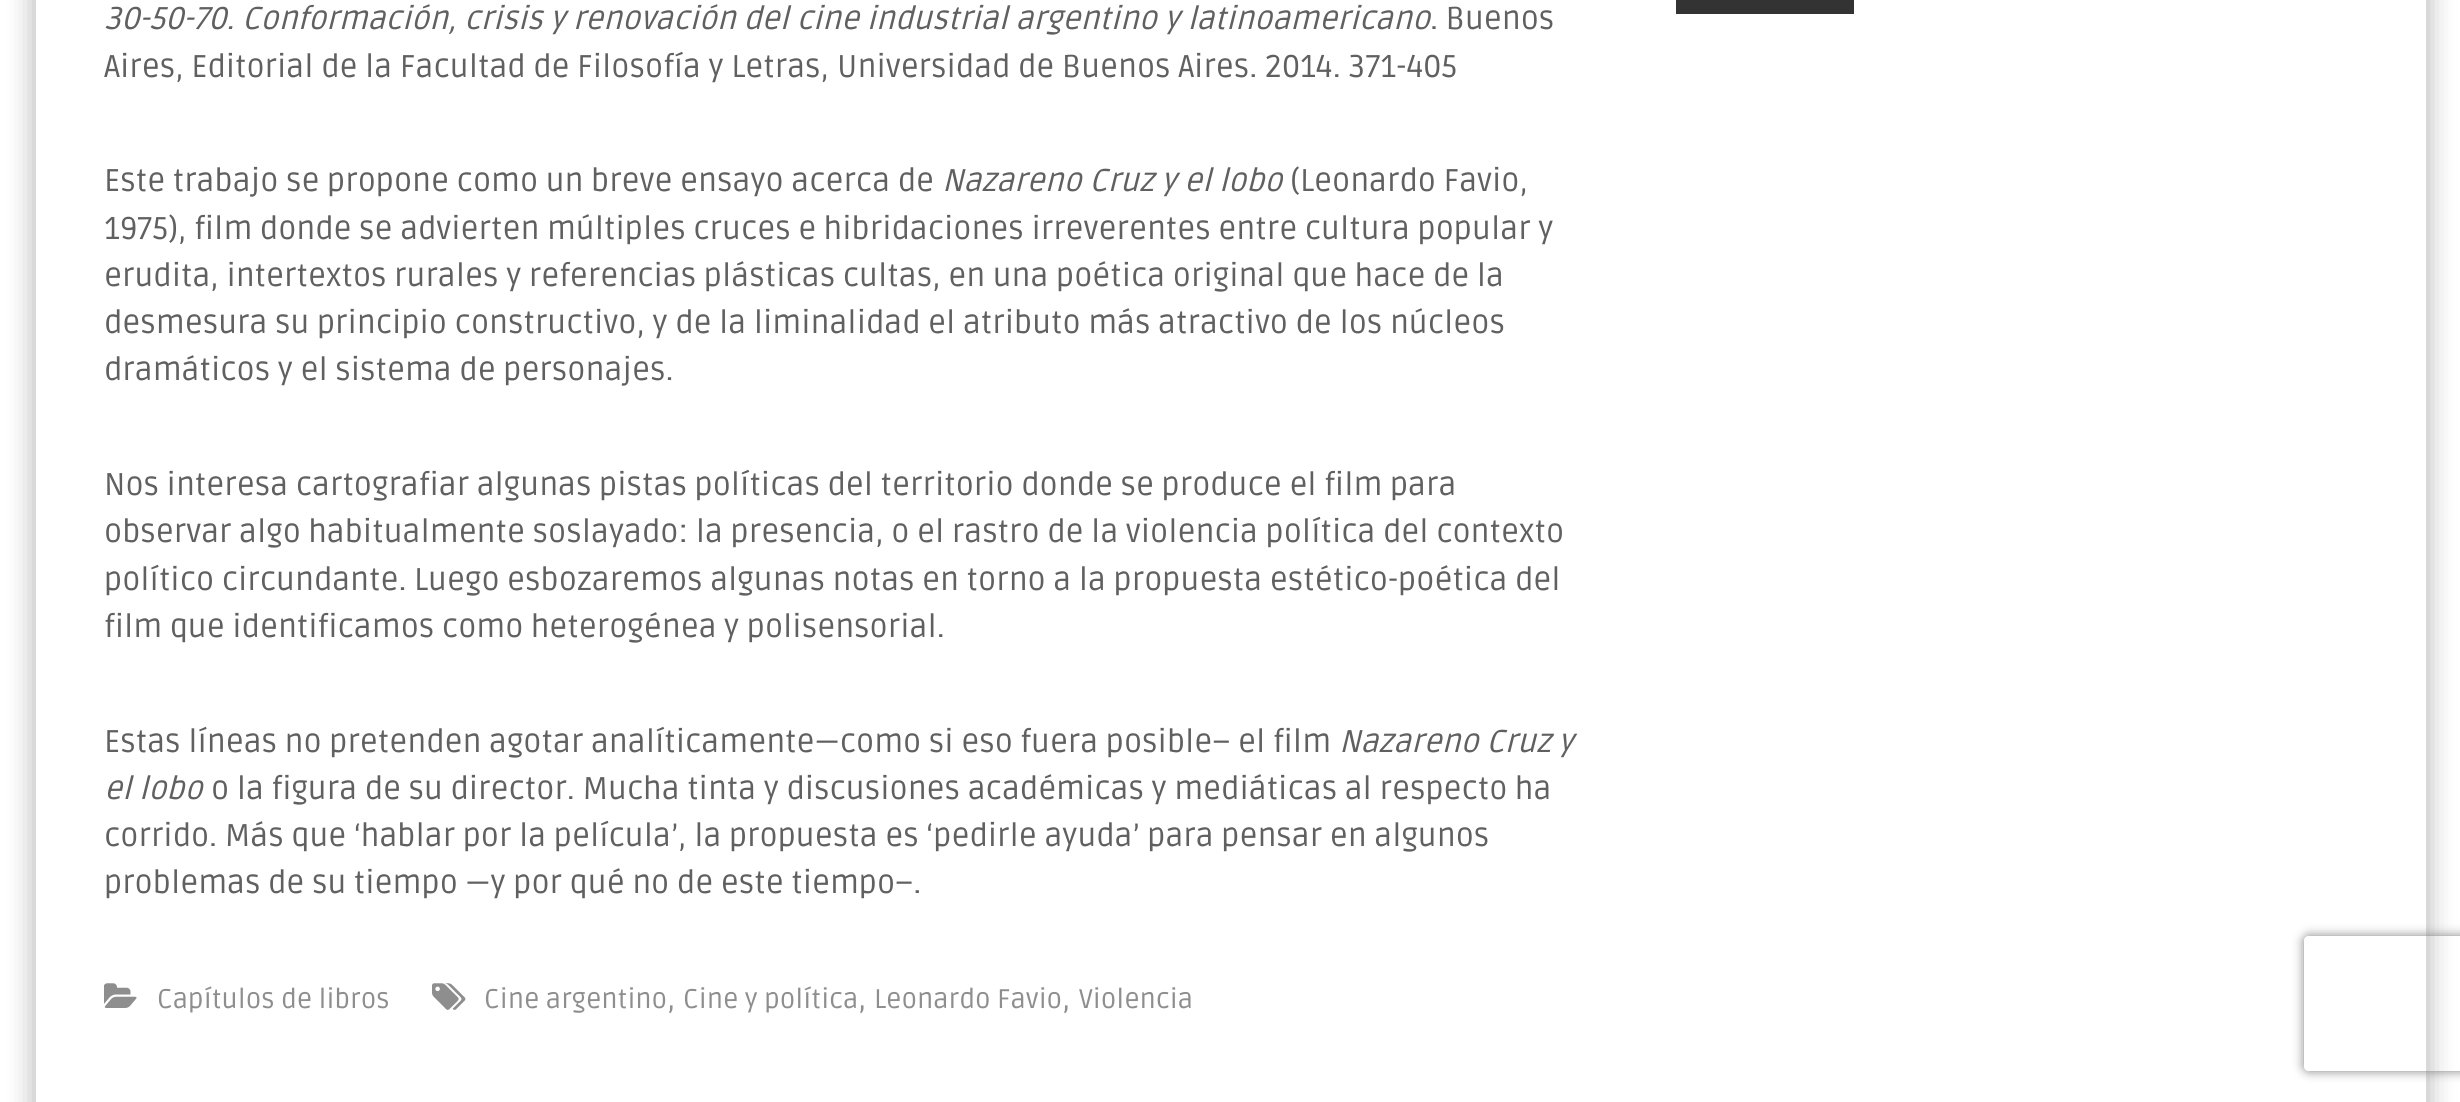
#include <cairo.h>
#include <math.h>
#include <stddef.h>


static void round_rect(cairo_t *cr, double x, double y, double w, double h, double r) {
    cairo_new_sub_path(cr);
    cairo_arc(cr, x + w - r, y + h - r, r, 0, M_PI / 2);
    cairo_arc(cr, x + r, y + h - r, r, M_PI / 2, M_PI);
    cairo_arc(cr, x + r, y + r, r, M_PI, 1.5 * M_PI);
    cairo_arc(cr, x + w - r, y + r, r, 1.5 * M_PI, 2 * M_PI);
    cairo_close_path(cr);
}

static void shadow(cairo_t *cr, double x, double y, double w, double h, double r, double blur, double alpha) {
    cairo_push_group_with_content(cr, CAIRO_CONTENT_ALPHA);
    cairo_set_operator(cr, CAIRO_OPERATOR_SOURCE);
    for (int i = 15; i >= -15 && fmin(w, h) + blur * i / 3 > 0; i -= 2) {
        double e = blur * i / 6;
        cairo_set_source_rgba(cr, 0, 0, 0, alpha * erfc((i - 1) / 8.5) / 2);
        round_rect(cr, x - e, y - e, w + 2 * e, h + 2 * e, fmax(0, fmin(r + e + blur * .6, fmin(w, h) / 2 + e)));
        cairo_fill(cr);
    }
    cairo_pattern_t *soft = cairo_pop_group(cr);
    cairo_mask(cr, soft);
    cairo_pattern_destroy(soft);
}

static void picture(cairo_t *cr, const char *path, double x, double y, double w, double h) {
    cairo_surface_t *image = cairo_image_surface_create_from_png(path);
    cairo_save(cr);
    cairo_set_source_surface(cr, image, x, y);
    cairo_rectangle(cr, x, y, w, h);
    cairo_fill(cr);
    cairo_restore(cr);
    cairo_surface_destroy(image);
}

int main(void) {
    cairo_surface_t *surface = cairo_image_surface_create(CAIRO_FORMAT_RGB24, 2460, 1102);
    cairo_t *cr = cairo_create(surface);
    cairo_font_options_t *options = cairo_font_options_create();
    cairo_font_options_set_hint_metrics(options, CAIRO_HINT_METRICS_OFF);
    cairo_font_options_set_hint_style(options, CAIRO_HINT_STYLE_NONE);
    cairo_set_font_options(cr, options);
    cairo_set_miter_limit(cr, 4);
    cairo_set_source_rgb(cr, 1, 1, 1);
    cairo_paint(cr);
    cairo_set_source_rgb(cr, 0, 0, 0);
    shadow(cr, 34, -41, 2394, 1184, 0, 13.5, 0.3);
    cairo_set_source_rgb(cr, 1, 1, 1);
    cairo_rectangle(cr, 36, 0, 2390, 1102);
    cairo_fill(cr);
    cairo_select_font_face(cr, "Ruda", CAIRO_FONT_SLANT_ITALIC, CAIRO_FONT_WEIGHT_NORMAL);
    cairo_set_font_size(cr, 31.5);
    cairo_set_source_rgb(cr, 0.376, 0.376, 0.376);
    cairo_move_to(cr, 104, 29);
    cairo_show_text(cr, "30-50-70. Conformación, crisis y renovación del cine industrial argentino y latinoamericano");
    cairo_select_font_face(cr, "Ruda", CAIRO_FONT_SLANT_NORMAL, CAIRO_FONT_WEIGHT_NORMAL);
    cairo_move_to(cr, 1430, 29);
    cairo_show_text(cr, ". Buenos");
    cairo_move_to(cr, 104, 77);
    cairo_show_text(cr, "Aires, Editorial de la Facultad de Filosofía y Letras, Universidad de Buenos Aires. 2014. 371-405");
    cairo_move_to(cr, 104, 191);
    cairo_show_text(cr, "Este trabajo se propone como un breve ensayo acerca de");
    cairo_select_font_face(cr, "Ruda", CAIRO_FONT_SLANT_ITALIC, CAIRO_FONT_WEIGHT_NORMAL);
    cairo_move_to(cr, 942, 191);
    cairo_show_text(cr, "Nazareno Cruz y el lobo");
    cairo_select_font_face(cr, "Ruda", CAIRO_FONT_SLANT_NORMAL, CAIRO_FONT_WEIGHT_NORMAL);
    cairo_move_to(cr, 1290, 191);
    cairo_show_text(cr, "(Leonardo Favio,");
    cairo_move_to(cr, 104, 239);
    cairo_show_text(cr, "1975), film donde se advierten múltiples cruces e hibridaciones irreverentes entre cultura popular y");
    cairo_move_to(cr, 104, 286);
    cairo_show_text(cr, "erudita, intertextos rurales y referencias plásticas cultas, en una poética original que hace de la");
    cairo_move_to(cr, 104, 333);
    cairo_show_text(cr, "desmesura su principio constructivo, y de la liminalidad el atributo más atractivo de los núcleos");
    cairo_move_to(cr, 104, 380);
    cairo_show_text(cr, "dramáticos y el sistema de personajes.");
    cairo_move_to(cr, 104, 495);
    cairo_show_text(cr, "Nos interesa cartografiar algunas pistas políticas del territorio donde se produce el film para");
    cairo_move_to(cr, 104, 542);
    cairo_show_text(cr, "observar algo habitualmente soslayado: la presencia, o el rastro de la violencia política del contexto");
    cairo_move_to(cr, 104, 590);
    cairo_show_text(cr, "político circundante. Luego esbozaremos algunas notas en torno a la propuesta estético-poética del");
    cairo_move_to(cr, 104, 637);
    cairo_show_text(cr, "film que identificamos como heterogénea y polisensorial.");
    cairo_move_to(cr, 104, 752);
    cairo_show_text(cr, "Estas líneas no pretenden agotar analíticamente—como si eso fuera posible– el film");
    cairo_select_font_face(cr, "Ruda", CAIRO_FONT_SLANT_ITALIC, CAIRO_FONT_WEIGHT_NORMAL);
    cairo_move_to(cr, 1339, 752);
    cairo_show_text(cr, "Nazareno Cruz y");
    cairo_move_to(cr, 104, 799);
    cairo_show_text(cr, "el lobo");
    cairo_select_font_face(cr, "Ruda", CAIRO_FONT_SLANT_NORMAL, CAIRO_FONT_WEIGHT_NORMAL);
    cairo_move_to(cr, 211, 799);
    cairo_show_text(cr, "o la figura de su director. Mucha tinta y discusiones académicas y mediáticas al respecto ha");
    cairo_move_to(cr, 104, 846);
    cairo_show_text(cr, "corrido. Más que ‘hablar por la película’, la propuesta es ‘pedirle ayuda’ para pensar en algunos");
    cairo_move_to(cr, 104, 893);
    cairo_show_text(cr, "problemas de su tiempo —y por qué no de este tiempo–.");
    picture(cr, "img1.png", 104, 983, 33, 25);
    cairo_set_font_size(cr, 27);
    cairo_set_source_rgb(cr, 0.557, 0.557, 0.557);
    cairo_move_to(cr, 157, 1008);
    cairo_show_text(cr, "Capítulos de libros");
    picture(cr, "img2.png", 432, 983, 34, 27);
    cairo_move_to(cr, 484, 1008);
    cairo_show_text(cr, "Cine argentino");
    cairo_set_font_size(cr, 31.5);
    cairo_move_to(cr, 667, 1008);
    cairo_show_text(cr, ",");
    cairo_set_font_size(cr, 27);
    cairo_move_to(cr, 683, 1008);
    cairo_show_text(cr, "Cine y política");
    cairo_set_font_size(cr, 31.5);
    cairo_move_to(cr, 858, 1008);
    cairo_show_text(cr, ",");
    cairo_set_font_size(cr, 27);
    cairo_move_to(cr, 874, 1008);
    cairo_show_text(cr, "Leonardo Favio");
    cairo_set_font_size(cr, 31.5);
    cairo_move_to(cr, 1062, 1008);
    cairo_show_text(cr, ",");
    cairo_set_font_size(cr, 27);
    cairo_move_to(cr, 1079, 1008);
    cairo_show_text(cr, "Violencia");
    cairo_set_source_rgb(cr, 0.2, 0.2, 0.2);
    cairo_rectangle(cr, 1676, 0, 178, 14);
    cairo_fill(cr);
    cairo_save(cr);
    cairo_set_fill_rule(cr, CAIRO_FILL_RULE_EVEN_ODD);
    cairo_new_path(cr);
    cairo_move_to(cr, 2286, 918);
    cairo_line_to(cr, 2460, 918);
    cairo_line_to(cr, 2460, 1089);
    cairo_line_to(cr, 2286, 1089);
    cairo_close_path(cr);
    cairo_move_to(cr, 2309, 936);
    cairo_line_to(cr, 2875, 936);
    cairo_curve_to(cr, 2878, 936, 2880, 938, 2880, 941);
    cairo_line_to(cr, 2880, 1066);
    cairo_curve_to(cr, 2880, 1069, 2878, 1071, 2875, 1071);
    cairo_line_to(cr, 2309, 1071);
    cairo_curve_to(cr, 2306, 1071, 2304, 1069, 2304, 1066);
    cairo_line_to(cr, 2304, 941);
    cairo_curve_to(cr, 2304, 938, 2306, 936, 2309, 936);
    cairo_close_path(cr);
    cairo_clip(cr);
    cairo_set_source_rgb(cr, 0.502, 0.502, 0.502);
    shadow(cr, 2304, 936, 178, 135, 5, 5.5, 1);
    cairo_restore(cr);
    cairo_surface_write_to_png(surface, "page.png");
    cairo_font_options_destroy(options);
    cairo_destroy(cr);
    cairo_surface_destroy(surface);
    return 0;
}
